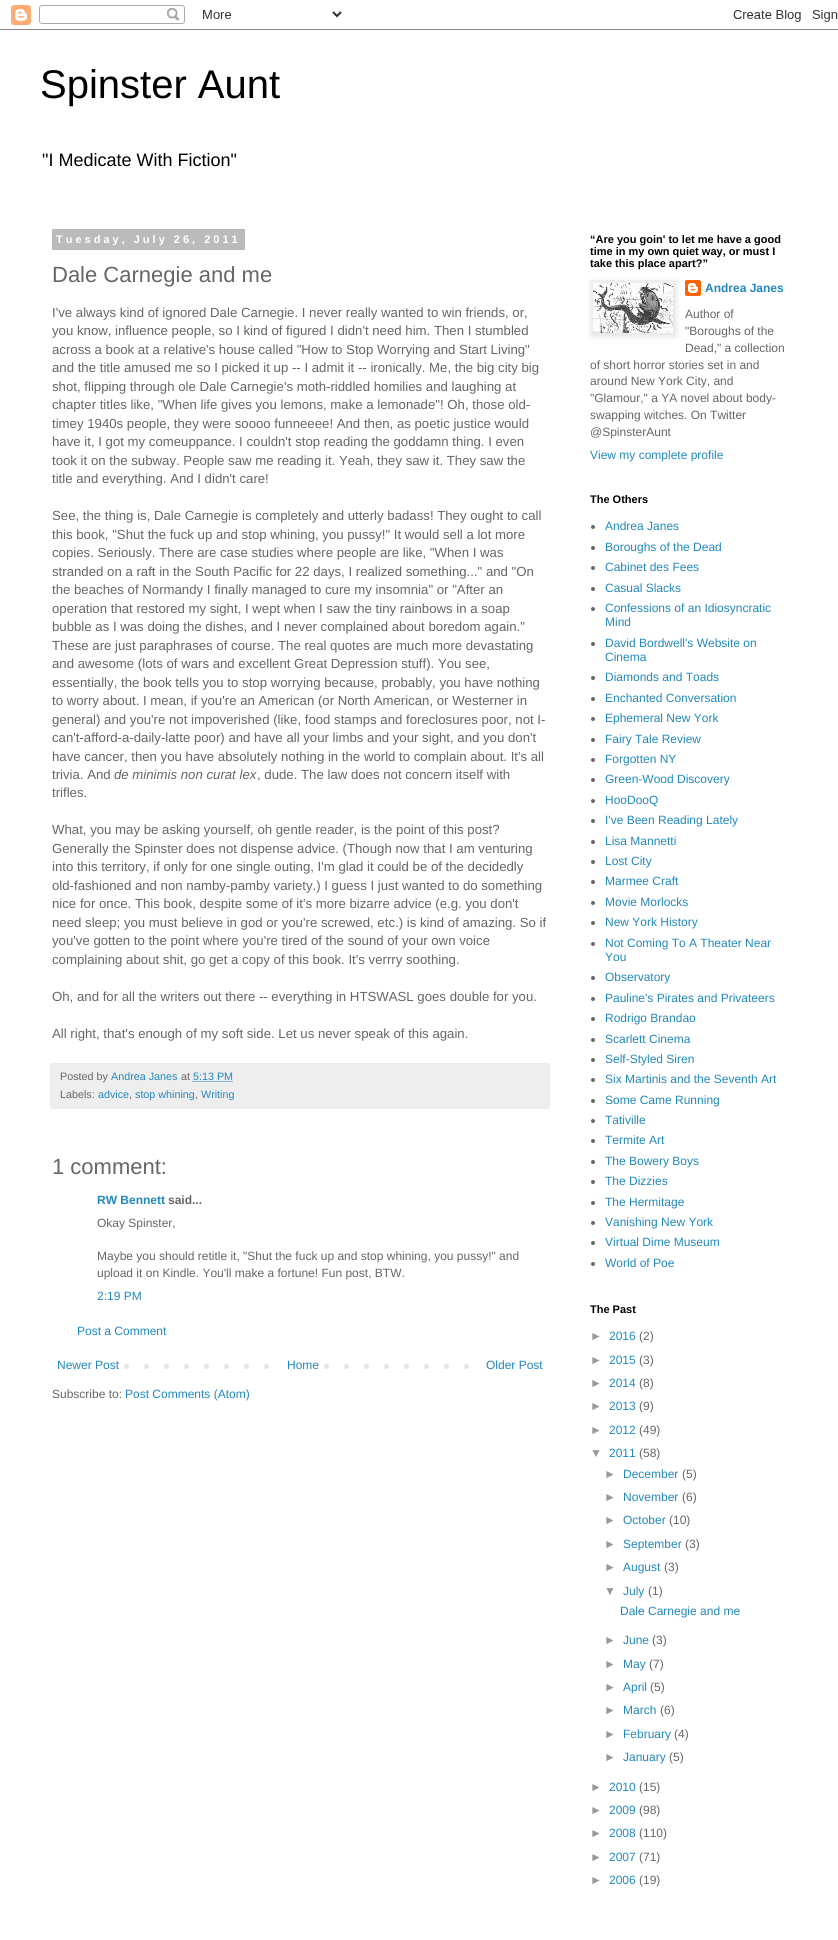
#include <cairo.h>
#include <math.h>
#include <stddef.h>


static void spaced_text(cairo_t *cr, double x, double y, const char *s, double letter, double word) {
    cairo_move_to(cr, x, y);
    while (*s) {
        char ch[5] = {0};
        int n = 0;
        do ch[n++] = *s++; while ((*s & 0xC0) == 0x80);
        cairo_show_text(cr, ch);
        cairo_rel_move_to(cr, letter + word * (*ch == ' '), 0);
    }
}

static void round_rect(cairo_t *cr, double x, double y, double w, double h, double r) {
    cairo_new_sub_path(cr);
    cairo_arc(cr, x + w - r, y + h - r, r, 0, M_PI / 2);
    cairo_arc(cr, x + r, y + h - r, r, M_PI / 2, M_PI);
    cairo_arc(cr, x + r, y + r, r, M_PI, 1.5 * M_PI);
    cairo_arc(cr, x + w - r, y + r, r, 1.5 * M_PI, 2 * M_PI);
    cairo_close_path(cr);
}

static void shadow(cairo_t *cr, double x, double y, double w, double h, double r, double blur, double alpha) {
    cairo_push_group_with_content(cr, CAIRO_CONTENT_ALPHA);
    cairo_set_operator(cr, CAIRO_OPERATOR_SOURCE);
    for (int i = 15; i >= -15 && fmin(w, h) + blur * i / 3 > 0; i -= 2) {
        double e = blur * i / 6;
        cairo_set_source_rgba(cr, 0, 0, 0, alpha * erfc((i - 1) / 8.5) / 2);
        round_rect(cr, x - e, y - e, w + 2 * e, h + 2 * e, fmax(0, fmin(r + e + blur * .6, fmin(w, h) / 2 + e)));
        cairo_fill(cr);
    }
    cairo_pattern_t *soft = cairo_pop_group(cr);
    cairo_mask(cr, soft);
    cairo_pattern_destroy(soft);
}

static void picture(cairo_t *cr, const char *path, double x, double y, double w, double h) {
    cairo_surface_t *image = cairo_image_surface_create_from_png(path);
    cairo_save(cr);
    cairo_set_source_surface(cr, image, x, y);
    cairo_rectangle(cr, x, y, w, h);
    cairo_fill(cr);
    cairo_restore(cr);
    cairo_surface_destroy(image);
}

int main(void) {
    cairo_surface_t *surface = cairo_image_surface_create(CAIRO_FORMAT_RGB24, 838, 1940);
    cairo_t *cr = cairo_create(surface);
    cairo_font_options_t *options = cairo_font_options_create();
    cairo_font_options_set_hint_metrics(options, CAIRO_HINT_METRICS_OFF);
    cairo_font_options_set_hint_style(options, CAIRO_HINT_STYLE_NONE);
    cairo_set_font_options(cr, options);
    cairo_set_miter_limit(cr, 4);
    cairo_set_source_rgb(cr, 1, 1, 1);
    cairo_paint(cr);
    picture(cr, "img1.png", 0, 5, 838, 25);
    cairo_select_font_face(cr, "Liberation Sans", CAIRO_FONT_SLANT_NORMAL, CAIRO_FONT_WEIGHT_NORMAL);
    cairo_set_font_size(cr, 40);
    cairo_set_source_rgb(cr, 0, 0, 0);
    cairo_move_to(cr, 40, 98);
    cairo_show_text(cr, "Spinster Aunt");
    cairo_set_font_size(cr, 18);
    cairo_move_to(cr, 42, 166);
    cairo_show_text(cr, "\"I Medicate With Fiction\"");
    cairo_set_source_rgb(cr, 0.733, 0.733, 0.733);
    cairo_rectangle(cr, 52, 229, 193, 21);
    cairo_fill(cr);
    cairo_select_font_face(cr, "Liberation Sans", CAIRO_FONT_SLANT_NORMAL, CAIRO_FONT_WEIGHT_BOLD);
    cairo_set_font_size(cr, 11);
    cairo_set_source_rgb(cr, 1, 1, 1);
    spaced_text(cr, 56, 243, "Tuesday, July 26, 2011", 3, 0);
    cairo_select_font_face(cr, "Liberation Sans", CAIRO_FONT_SLANT_NORMAL, CAIRO_FONT_WEIGHT_NORMAL);
    cairo_set_font_size(cr, 22);
    cairo_set_source_rgb(cr, 0.4, 0.4, 0.4);
    cairo_move_to(cr, 52, 282);
    cairo_show_text(cr, "Dale Carnegie and me");
    cairo_set_font_size(cr, 13.2);
    cairo_move_to(cr, 52, 317);
    cairo_show_text(cr, "I've always kind of ignored Dale Carnegie. I never really wanted to win friends, or,");
    cairo_move_to(cr, 52, 335);
    cairo_show_text(cr, "you know, influence people, so I kind of figured I didn't need him. Then I stumbled");
    cairo_move_to(cr, 52, 354);
    cairo_show_text(cr, "across a book at a relative's house called \"How to Stop Worrying and Start Living\"");
    cairo_move_to(cr, 52, 372);
    cairo_show_text(cr, "and the title amused me so I picked it up -- I admit it -- ironically. Me, the big city big");
    cairo_move_to(cr, 52, 391);
    cairo_show_text(cr, "shot, flipping through ole Dale Carnegie's moth-riddled homilies and laughing at");
    cairo_move_to(cr, 52, 409);
    cairo_show_text(cr, "chapter titles like, \"When life gives you lemons, make a lemonade\"! Oh, those old-");
    cairo_move_to(cr, 52, 428);
    cairo_show_text(cr, "timey 1940s people, they were soooo funneeee! And then, as poetic justice would");
    cairo_move_to(cr, 52, 446);
    cairo_show_text(cr, "have it, I got my comeuppance. I couldn't stop reading the goddamn thing. I even");
    cairo_move_to(cr, 52, 465);
    cairo_show_text(cr, "took it on the subway. People saw me reading it. Yeah, they saw it. They saw the");
    cairo_move_to(cr, 52, 483);
    cairo_show_text(cr, "title and everything. And I didn't care!");
    cairo_move_to(cr, 52, 520);
    cairo_show_text(cr, "See, the thing is, Dale Carnegie is completely and utterly badass! They ought to call");
    cairo_move_to(cr, 52, 539);
    cairo_show_text(cr, "this book, \"Shut the fuck up and stop whining, you pussy!\" It would sell a lot more");
    cairo_move_to(cr, 52, 557);
    cairo_show_text(cr, "copies. Seriously. There are case studies where people are like, \"When I was");
    cairo_move_to(cr, 52, 576);
    cairo_show_text(cr, "stranded on a raft in the South Pacific for 22 days, I realized something...\" and \"On");
    cairo_move_to(cr, 52, 594);
    cairo_show_text(cr, "the beaches of Normandy I finally managed to cure my insomnia\" or \"After an");
    cairo_move_to(cr, 52, 613);
    cairo_show_text(cr, "operation that restored my sight, I wept when I saw the tiny rainbows in a soap");
    cairo_move_to(cr, 52, 631);
    cairo_show_text(cr, "bubble as I was doing the dishes, and I never complained about boredom again.\"");
    cairo_move_to(cr, 52, 650);
    cairo_show_text(cr, "These are just paraphrases of course. The real quotes are much more devastating");
    cairo_move_to(cr, 52, 668);
    cairo_show_text(cr, "and awesome (lots of wars and excellent Great Depression stuff). You see,");
    cairo_move_to(cr, 52, 687);
    cairo_show_text(cr, "essentially, the book tells you to stop worrying because, probably, you have nothing");
    cairo_move_to(cr, 52, 705);
    cairo_show_text(cr, "to worry about. I mean, if you're an American (or North American, or Westerner in");
    cairo_move_to(cr, 52, 724);
    cairo_show_text(cr, "general) and you're not impoverished (like, food stamps and foreclosures poor, not I-");
    cairo_move_to(cr, 52, 742);
    cairo_show_text(cr, "can't-afford-a-daily-latte poor) and have all your limbs and your sight, and you don't");
    cairo_move_to(cr, 52, 761);
    cairo_show_text(cr, "have cancer, then you have absolutely nothing in the world to complain about. It's all");
    cairo_move_to(cr, 52, 779);
    cairo_show_text(cr, "trivia. And");
    cairo_select_font_face(cr, "Liberation Sans", CAIRO_FONT_SLANT_ITALIC, CAIRO_FONT_WEIGHT_NORMAL);
    cairo_move_to(cr, 114, 779);
    cairo_show_text(cr, "de minimis non curat lex");
    cairo_select_font_face(cr, "Liberation Sans", CAIRO_FONT_SLANT_NORMAL, CAIRO_FONT_WEIGHT_NORMAL);
    cairo_move_to(cr, 257, 779);
    cairo_show_text(cr, ", dude. The law does not concern itself with");
    cairo_move_to(cr, 52, 797);
    cairo_show_text(cr, "trifles.");
    cairo_move_to(cr, 52, 834);
    cairo_show_text(cr, "What, you may be asking yourself, oh gentle reader, is the point of this post?");
    cairo_move_to(cr, 52, 853);
    cairo_show_text(cr, "Generally the Spinster does not dispense advice. (Though now that I am venturing");
    cairo_move_to(cr, 52, 871);
    cairo_show_text(cr, "into this territory, if only for one single outing, I'm glad it could be of the decidedly");
    cairo_move_to(cr, 52, 890);
    cairo_show_text(cr, "old-fashioned and non namby-pamby variety.) I guess I just wanted to do something");
    cairo_move_to(cr, 52, 908);
    cairo_show_text(cr, "nice for once. This book, despite some of it's more bizarre advice (e.g. you don't");
    cairo_move_to(cr, 52, 927);
    cairo_show_text(cr, "need sleep; you must believe in god or you're screwed, etc.) is kind of amazing. So if");
    cairo_move_to(cr, 52, 945);
    cairo_show_text(cr, "you've gotten to the point where you're tired of the sound of your own voice");
    cairo_move_to(cr, 52, 964);
    cairo_show_text(cr, "complaining about shit, go get a copy of this book. It's verrry soothing.");
    cairo_move_to(cr, 52, 1001);
    cairo_show_text(cr, "Oh, and for all the writers out there -- everything in HTSWASL goes double for you.");
    cairo_move_to(cr, 52, 1038);
    cairo_show_text(cr, "All right, that's enough of my soft side. Let us never speak of this again.");
    cairo_set_source_rgb(cr, 0.933, 0.933, 0.933);
    cairo_rectangle(cr, 50, 1063, 500, 46);
    cairo_fill(cr);
    cairo_set_font_size(cr, 10.75);
    cairo_set_source_rgb(cr, 0.4, 0.4, 0.4);
    cairo_move_to(cr, 60, 1080);
    cairo_show_text(cr, "Posted by");
    cairo_set_source_rgb(cr, 0.133, 0.533, 0.733);
    cairo_move_to(cr, 111, 1080);
    cairo_show_text(cr, "Andrea Janes");
    cairo_set_source_rgb(cr, 0.4, 0.4, 0.4);
    cairo_move_to(cr, 181, 1080);
    cairo_show_text(cr, "at");
    cairo_set_source_rgb(cr, 0.133, 0.533, 0.733);
    cairo_move_to(cr, 193, 1080);
    cairo_show_text(cr, "5:13 PM");
    cairo_new_path(cr);
    cairo_move_to(cr, 192.5, 1081.5);
    cairo_line_to(cr, 233, 1081.5);
    cairo_set_line_width(cr, 1);
    cairo_set_dash(cr, (double[]){1, 1}, 2, 0);
    cairo_stroke(cr);
    cairo_set_source_rgb(cr, 0.4, 0.4, 0.4);
    cairo_move_to(cr, 60, 1098);
    cairo_show_text(cr, "Labels:");
    cairo_set_source_rgb(cr, 0.133, 0.533, 0.733);
    cairo_move_to(cr, 98, 1098);
    cairo_show_text(cr, "advice");
    cairo_set_source_rgb(cr, 0.4, 0.4, 0.4);
    cairo_move_to(cr, 129, 1098);
    cairo_show_text(cr, ",");
    cairo_set_source_rgb(cr, 0.133, 0.533, 0.733);
    cairo_move_to(cr, 135, 1098);
    cairo_show_text(cr, "stop whining");
    cairo_set_source_rgb(cr, 0.4, 0.4, 0.4);
    cairo_move_to(cr, 195, 1098);
    cairo_show_text(cr, ",");
    cairo_set_source_rgb(cr, 0.133, 0.533, 0.733);
    cairo_move_to(cr, 201, 1098);
    cairo_show_text(cr, "Writing");
    cairo_set_font_size(cr, 22);
    cairo_set_source_rgb(cr, 0.4, 0.4, 0.4);
    cairo_move_to(cr, 52, 1174);
    cairo_show_text(cr, "1 comment:");
    cairo_select_font_face(cr, "Liberation Sans", CAIRO_FONT_SLANT_NORMAL, CAIRO_FONT_WEIGHT_BOLD);
    cairo_set_font_size(cr, 12);
    cairo_set_source_rgb(cr, 0.133, 0.533, 0.733);
    cairo_move_to(cr, 97, 1204);
    cairo_show_text(cr, "RW Bennett");
    cairo_set_source_rgb(cr, 0.4, 0.4, 0.4);
    cairo_move_to(cr, 168, 1204);
    cairo_show_text(cr, "said...");
    cairo_select_font_face(cr, "Liberation Sans", CAIRO_FONT_SLANT_NORMAL, CAIRO_FONT_WEIGHT_NORMAL);
    cairo_move_to(cr, 97, 1227);
    cairo_show_text(cr, "Okay Spinster,");
    cairo_move_to(cr, 97, 1260);
    cairo_show_text(cr, "Maybe you should retitle it, \"Shut the fuck up and stop whining, you pussy!\" and");
    cairo_move_to(cr, 97, 1277);
    cairo_show_text(cr, "upload it on Kindle. You'll make a fortune! Fun post, BTW.");
    cairo_set_source_rgb(cr, 0.133, 0.533, 0.733);
    cairo_move_to(cr, 97, 1300);
    cairo_show_text(cr, "2:19 PM");
    cairo_move_to(cr, 77, 1335);
    cairo_show_text(cr, "Post a Comment");
    picture(cr, "img2.png", 124, 1364, 345, 5);
    cairo_move_to(cr, 57, 1369);
    cairo_show_text(cr, "Newer Post");
    cairo_set_source_rgb(cr, 1, 1, 1);
    cairo_rectangle(cr, 284, 1364, 26, 5);
    cairo_fill(cr);
    cairo_set_source_rgb(cr, 0.133, 0.533, 0.733);
    cairo_move_to(cr, 287, 1369);
    cairo_show_text(cr, "Home");
    cairo_move_to(cr, 486, 1369);
    cairo_show_text(cr, "Older Post");
    cairo_set_source_rgb(cr, 0.4, 0.4, 0.4);
    cairo_move_to(cr, 52, 1398);
    cairo_show_text(cr, "Subscribe to:");
    cairo_set_source_rgb(cr, 0.133, 0.533, 0.733);
    cairo_move_to(cr, 125, 1398);
    cairo_show_text(cr, "Post Comments (Atom)");
    cairo_select_font_face(cr, "Liberation Sans", CAIRO_FONT_SLANT_NORMAL, CAIRO_FONT_WEIGHT_BOLD);
    cairo_set_font_size(cr, 11);
    cairo_set_source_rgb(cr, 0, 0, 0);
    cairo_move_to(cr, 590, 243);
    cairo_show_text(cr, "“Are you goin' to let me have a good");
    cairo_move_to(cr, 590, 255);
    cairo_show_text(cr, "time in my own quiet way, or must I");
    cairo_move_to(cr, 590, 267);
    cairo_show_text(cr, "take this place apart?”");
    picture(cr, "img4.png", 685, 280, 16, 16);
    cairo_set_source_rgb(cr, 0, 0, 0);
    shadow(cr, 591, 281, 86, 56, 0, 2.5, 0.1);
    cairo_rectangle(cr, 590.5, 280.5, 85, 55);
    cairo_set_source_rgb(cr, 0.933, 0.933, 0.933);
    cairo_set_dash(cr, NULL, 0, 0);
    cairo_stroke(cr);
    picture(cr, "img3.png", 593, 283, 80, 50);
    cairo_set_font_size(cr, 12);
    cairo_set_source_rgb(cr, 0.133, 0.533, 0.733);
    cairo_move_to(cr, 705, 292);
    cairo_show_text(cr, "Andrea Janes");
    cairo_select_font_face(cr, "Liberation Sans", CAIRO_FONT_SLANT_NORMAL, CAIRO_FONT_WEIGHT_NORMAL);
    cairo_set_source_rgb(cr, 0.4, 0.4, 0.4);
    cairo_move_to(cr, 685, 318);
    cairo_show_text(cr, "Author of");
    cairo_move_to(cr, 685, 335);
    cairo_show_text(cr, "\"Boroughs of the");
    cairo_move_to(cr, 685, 352);
    cairo_show_text(cr, "Dead,\" a collection");
    cairo_move_to(cr, 590, 369);
    cairo_show_text(cr, "of short horror stories set in and");
    cairo_move_to(cr, 590, 385);
    cairo_show_text(cr, "around New York City, and");
    cairo_move_to(cr, 590, 402);
    cairo_show_text(cr, "\"Glamour,\" a YA novel about body-");
    cairo_move_to(cr, 590, 419);
    cairo_show_text(cr, "swapping witches. On Twitter");
    cairo_move_to(cr, 590, 436);
    cairo_show_text(cr, "@SpinsterAunt");
    cairo_set_source_rgb(cr, 0.133, 0.533, 0.733);
    cairo_move_to(cr, 590, 459);
    cairo_show_text(cr, "View my complete profile");
    cairo_select_font_face(cr, "Liberation Sans", CAIRO_FONT_SLANT_NORMAL, CAIRO_FONT_WEIGHT_BOLD);
    cairo_set_font_size(cr, 11);
    cairo_set_source_rgb(cr, 0, 0, 0);
    cairo_move_to(cr, 590, 503);
    cairo_show_text(cr, "The Others");
    cairo_set_source_rgb(cr, 0.4, 0.4, 0.4);
    cairo_new_path(cr);
    cairo_arc(cr, 593, 527, 2, 0, 2 * M_PI);
    cairo_fill(cr);
    cairo_select_font_face(cr, "Liberation Sans", CAIRO_FONT_SLANT_NORMAL, CAIRO_FONT_WEIGHT_NORMAL);
    cairo_set_font_size(cr, 12);
    cairo_set_source_rgb(cr, 0.133, 0.533, 0.733);
    cairo_move_to(cr, 605, 530);
    cairo_show_text(cr, "Andrea Janes");
    cairo_set_source_rgb(cr, 0.4, 0.4, 0.4);
    cairo_new_path(cr);
    cairo_arc(cr, 593, 548, 2, 0, 2 * M_PI);
    cairo_fill(cr);
    cairo_set_source_rgb(cr, 0.133, 0.533, 0.733);
    cairo_move_to(cr, 605, 551);
    cairo_show_text(cr, "Boroughs of the Dead");
    cairo_set_source_rgb(cr, 0.4, 0.4, 0.4);
    cairo_new_path(cr);
    cairo_arc(cr, 593, 568, 2, 0, 2 * M_PI);
    cairo_fill(cr);
    cairo_set_source_rgb(cr, 0.133, 0.533, 0.733);
    cairo_move_to(cr, 605, 571);
    cairo_show_text(cr, "Cabinet des Fees");
    cairo_set_source_rgb(cr, 0.4, 0.4, 0.4);
    cairo_new_path(cr);
    cairo_arc(cr, 593, 589, 2, 0, 2 * M_PI);
    cairo_fill(cr);
    cairo_set_source_rgb(cr, 0.133, 0.533, 0.733);
    cairo_move_to(cr, 605, 592);
    cairo_show_text(cr, "Casual Slacks");
    cairo_set_source_rgb(cr, 0.4, 0.4, 0.4);
    cairo_new_path(cr);
    cairo_arc(cr, 593, 609, 2, 0, 2 * M_PI);
    cairo_fill(cr);
    cairo_set_source_rgb(cr, 0.133, 0.533, 0.733);
    cairo_move_to(cr, 605, 612);
    cairo_show_text(cr, "Confessions of an Idiosyncratic");
    cairo_move_to(cr, 605, 626);
    cairo_show_text(cr, "Mind");
    cairo_set_source_rgb(cr, 0.4, 0.4, 0.4);
    cairo_new_path(cr);
    cairo_arc(cr, 593, 644, 2, 0, 2 * M_PI);
    cairo_fill(cr);
    cairo_set_source_rgb(cr, 0.133, 0.533, 0.733);
    cairo_move_to(cr, 605, 647);
    cairo_show_text(cr, "David Bordwell's Website on");
    cairo_move_to(cr, 605, 661);
    cairo_show_text(cr, "Cinema");
    cairo_set_source_rgb(cr, 0.4, 0.4, 0.4);
    cairo_new_path(cr);
    cairo_arc(cr, 593, 678, 2, 0, 2 * M_PI);
    cairo_fill(cr);
    cairo_set_source_rgb(cr, 0.133, 0.533, 0.733);
    cairo_move_to(cr, 605, 681);
    cairo_show_text(cr, "Diamonds and Toads");
    cairo_set_source_rgb(cr, 0.4, 0.4, 0.4);
    cairo_new_path(cr);
    cairo_arc(cr, 593, 699, 2, 0, 2 * M_PI);
    cairo_fill(cr);
    cairo_set_source_rgb(cr, 0.133, 0.533, 0.733);
    cairo_move_to(cr, 605, 702);
    cairo_show_text(cr, "Enchanted Conversation");
    cairo_set_source_rgb(cr, 0.4, 0.4, 0.4);
    cairo_new_path(cr);
    cairo_arc(cr, 593, 719, 2, 0, 2 * M_PI);
    cairo_fill(cr);
    cairo_set_source_rgb(cr, 0.133, 0.533, 0.733);
    cairo_move_to(cr, 605, 722);
    cairo_show_text(cr, "Ephemeral New York");
    cairo_set_source_rgb(cr, 0.4, 0.4, 0.4);
    cairo_new_path(cr);
    cairo_arc(cr, 593, 740, 2, 0, 2 * M_PI);
    cairo_fill(cr);
    cairo_set_source_rgb(cr, 0.133, 0.533, 0.733);
    cairo_move_to(cr, 605, 743);
    cairo_show_text(cr, "Fairy Tale Review");
    cairo_set_source_rgb(cr, 0.4, 0.4, 0.4);
    cairo_new_path(cr);
    cairo_arc(cr, 593, 760, 2, 0, 2 * M_PI);
    cairo_fill(cr);
    cairo_set_source_rgb(cr, 0.133, 0.533, 0.733);
    cairo_move_to(cr, 605, 763);
    cairo_show_text(cr, "Forgotten NY");
    cairo_set_source_rgb(cr, 0.4, 0.4, 0.4);
    cairo_new_path(cr);
    cairo_arc(cr, 593, 780, 2, 0, 2 * M_PI);
    cairo_fill(cr);
    cairo_set_source_rgb(cr, 0.133, 0.533, 0.733);
    cairo_move_to(cr, 605, 783);
    cairo_show_text(cr, "Green-Wood Discovery");
    cairo_set_source_rgb(cr, 0.4, 0.4, 0.4);
    cairo_new_path(cr);
    cairo_arc(cr, 593, 801, 2, 0, 2 * M_PI);
    cairo_fill(cr);
    cairo_set_source_rgb(cr, 0.133, 0.533, 0.733);
    cairo_move_to(cr, 605, 804);
    cairo_show_text(cr, "HooDooQ");
    cairo_set_source_rgb(cr, 0.4, 0.4, 0.4);
    cairo_new_path(cr);
    cairo_arc(cr, 593, 821, 2, 0, 2 * M_PI);
    cairo_fill(cr);
    cairo_set_source_rgb(cr, 0.133, 0.533, 0.733);
    cairo_move_to(cr, 605, 824);
    cairo_show_text(cr, "I've Been Reading Lately");
    cairo_set_source_rgb(cr, 0.4, 0.4, 0.4);
    cairo_new_path(cr);
    cairo_arc(cr, 593, 842, 2, 0, 2 * M_PI);
    cairo_fill(cr);
    cairo_set_source_rgb(cr, 0.133, 0.533, 0.733);
    cairo_move_to(cr, 605, 845);
    cairo_show_text(cr, "Lisa Mannetti");
    cairo_set_source_rgb(cr, 0.4, 0.4, 0.4);
    cairo_new_path(cr);
    cairo_arc(cr, 593, 862, 2, 0, 2 * M_PI);
    cairo_fill(cr);
    cairo_set_source_rgb(cr, 0.133, 0.533, 0.733);
    cairo_move_to(cr, 605, 865);
    cairo_show_text(cr, "Lost City");
    cairo_set_source_rgb(cr, 0.4, 0.4, 0.4);
    cairo_new_path(cr);
    cairo_arc(cr, 593, 882, 2, 0, 2 * M_PI);
    cairo_fill(cr);
    cairo_set_source_rgb(cr, 0.133, 0.533, 0.733);
    cairo_move_to(cr, 605, 885);
    cairo_show_text(cr, "Marmee Craft");
    cairo_set_source_rgb(cr, 0.4, 0.4, 0.4);
    cairo_new_path(cr);
    cairo_arc(cr, 593, 903, 2, 0, 2 * M_PI);
    cairo_fill(cr);
    cairo_set_source_rgb(cr, 0.133, 0.533, 0.733);
    cairo_move_to(cr, 605, 906);
    cairo_show_text(cr, "Movie Morlocks");
    cairo_set_source_rgb(cr, 0.4, 0.4, 0.4);
    cairo_new_path(cr);
    cairo_arc(cr, 593, 923, 2, 0, 2 * M_PI);
    cairo_fill(cr);
    cairo_set_source_rgb(cr, 0.133, 0.533, 0.733);
    cairo_move_to(cr, 605, 926);
    cairo_show_text(cr, "New York History");
    cairo_set_source_rgb(cr, 0.4, 0.4, 0.4);
    cairo_new_path(cr);
    cairo_arc(cr, 593, 944, 2, 0, 2 * M_PI);
    cairo_fill(cr);
    cairo_set_source_rgb(cr, 0.133, 0.533, 0.733);
    cairo_move_to(cr, 605, 947);
    cairo_show_text(cr, "Not Coming To A Theater Near");
    cairo_move_to(cr, 605, 961);
    cairo_show_text(cr, "You");
    cairo_set_source_rgb(cr, 0.4, 0.4, 0.4);
    cairo_new_path(cr);
    cairo_arc(cr, 593, 978, 2, 0, 2 * M_PI);
    cairo_fill(cr);
    cairo_set_source_rgb(cr, 0.133, 0.533, 0.733);
    cairo_move_to(cr, 605, 981);
    cairo_show_text(cr, "Observatory");
    cairo_set_source_rgb(cr, 0.4, 0.4, 0.4);
    cairo_new_path(cr);
    cairo_arc(cr, 593, 999, 2, 0, 2 * M_PI);
    cairo_fill(cr);
    cairo_set_source_rgb(cr, 0.133, 0.533, 0.733);
    cairo_move_to(cr, 605, 1002);
    cairo_show_text(cr, "Pauline's Pirates and Privateers");
    cairo_set_source_rgb(cr, 0.4, 0.4, 0.4);
    cairo_new_path(cr);
    cairo_arc(cr, 593, 1019, 2, 0, 2 * M_PI);
    cairo_fill(cr);
    cairo_set_source_rgb(cr, 0.133, 0.533, 0.733);
    cairo_move_to(cr, 605, 1022);
    cairo_show_text(cr, "Rodrigo Brandao");
    cairo_set_source_rgb(cr, 0.4, 0.4, 0.4);
    cairo_new_path(cr);
    cairo_arc(cr, 593, 1040, 2, 0, 2 * M_PI);
    cairo_fill(cr);
    cairo_set_source_rgb(cr, 0.133, 0.533, 0.733);
    cairo_move_to(cr, 605, 1043);
    cairo_show_text(cr, "Scarlett Cinema");
    cairo_set_source_rgb(cr, 0.4, 0.4, 0.4);
    cairo_new_path(cr);
    cairo_arc(cr, 593, 1060, 2, 0, 2 * M_PI);
    cairo_fill(cr);
    cairo_set_source_rgb(cr, 0.133, 0.533, 0.733);
    cairo_move_to(cr, 605, 1063);
    cairo_show_text(cr, "Self-Styled Siren");
    cairo_set_source_rgb(cr, 0.4, 0.4, 0.4);
    cairo_new_path(cr);
    cairo_arc(cr, 593, 1080, 2, 0, 2 * M_PI);
    cairo_fill(cr);
    cairo_set_source_rgb(cr, 0.133, 0.533, 0.733);
    cairo_move_to(cr, 605, 1083);
    cairo_show_text(cr, "Six Martinis and the Seventh Art");
    cairo_set_source_rgb(cr, 0.4, 0.4, 0.4);
    cairo_new_path(cr);
    cairo_arc(cr, 593, 1101, 2, 0, 2 * M_PI);
    cairo_fill(cr);
    cairo_set_source_rgb(cr, 0.133, 0.533, 0.733);
    cairo_move_to(cr, 605, 1104);
    cairo_show_text(cr, "Some Came Running");
    cairo_set_source_rgb(cr, 0.4, 0.4, 0.4);
    cairo_new_path(cr);
    cairo_arc(cr, 593, 1121, 2, 0, 2 * M_PI);
    cairo_fill(cr);
    cairo_set_source_rgb(cr, 0.133, 0.533, 0.733);
    cairo_move_to(cr, 605, 1124);
    cairo_show_text(cr, "Tativille");
    cairo_set_source_rgb(cr, 0.4, 0.4, 0.4);
    cairo_new_path(cr);
    cairo_arc(cr, 593, 1141, 2, 0, 2 * M_PI);
    cairo_fill(cr);
    cairo_set_source_rgb(cr, 0.133, 0.533, 0.733);
    cairo_move_to(cr, 605, 1144);
    cairo_show_text(cr, "Termite Art");
    cairo_set_source_rgb(cr, 0.4, 0.4, 0.4);
    cairo_new_path(cr);
    cairo_arc(cr, 593, 1162, 2, 0, 2 * M_PI);
    cairo_fill(cr);
    cairo_set_source_rgb(cr, 0.133, 0.533, 0.733);
    cairo_move_to(cr, 605, 1165);
    cairo_show_text(cr, "The Bowery Boys");
    cairo_set_source_rgb(cr, 0.4, 0.4, 0.4);
    cairo_new_path(cr);
    cairo_arc(cr, 593, 1182, 2, 0, 2 * M_PI);
    cairo_fill(cr);
    cairo_set_source_rgb(cr, 0.133, 0.533, 0.733);
    cairo_move_to(cr, 605, 1185);
    cairo_show_text(cr, "The Dizzies");
    cairo_set_source_rgb(cr, 0.4, 0.4, 0.4);
    cairo_new_path(cr);
    cairo_arc(cr, 593, 1203, 2, 0, 2 * M_PI);
    cairo_fill(cr);
    cairo_set_source_rgb(cr, 0.133, 0.533, 0.733);
    cairo_move_to(cr, 605, 1206);
    cairo_show_text(cr, "The Hermitage");
    cairo_set_source_rgb(cr, 0.4, 0.4, 0.4);
    cairo_new_path(cr);
    cairo_arc(cr, 593, 1223, 2, 0, 2 * M_PI);
    cairo_fill(cr);
    cairo_set_source_rgb(cr, 0.133, 0.533, 0.733);
    cairo_move_to(cr, 605, 1226);
    cairo_show_text(cr, "Vanishing New York");
    cairo_set_source_rgb(cr, 0.4, 0.4, 0.4);
    cairo_new_path(cr);
    cairo_arc(cr, 593, 1243, 2, 0, 2 * M_PI);
    cairo_fill(cr);
    cairo_set_source_rgb(cr, 0.133, 0.533, 0.733);
    cairo_move_to(cr, 605, 1246);
    cairo_show_text(cr, "Virtual Dime Museum");
    cairo_set_source_rgb(cr, 0.4, 0.4, 0.4);
    cairo_new_path(cr);
    cairo_arc(cr, 593, 1264, 2, 0, 2 * M_PI);
    cairo_fill(cr);
    cairo_set_source_rgb(cr, 0.133, 0.533, 0.733);
    cairo_move_to(cr, 605, 1267);
    cairo_show_text(cr, "World of Poe");
    cairo_select_font_face(cr, "Liberation Sans", CAIRO_FONT_SLANT_NORMAL, CAIRO_FONT_WEIGHT_BOLD);
    cairo_set_font_size(cr, 11);
    cairo_set_source_rgb(cr, 0, 0, 0);
    cairo_move_to(cr, 590, 1313);
    cairo_show_text(cr, "The Past");
    cairo_select_font_face(cr, "Liberation Sans", CAIRO_FONT_SLANT_NORMAL, CAIRO_FONT_WEIGHT_NORMAL);
    cairo_set_font_size(cr, 12);
    cairo_set_source_rgb(cr, 0.6, 0.6, 0.6);
    cairo_move_to(cr, 590, 1340);
    cairo_show_text(cr, "►");
    cairo_set_source_rgb(cr, 0.133, 0.533, 0.733);
    cairo_move_to(cr, 609, 1340);
    cairo_show_text(cr, "2016");
    cairo_set_source_rgb(cr, 0.4, 0.4, 0.4);
    cairo_move_to(cr, 639, 1340);
    cairo_show_text(cr, "(2)");
    cairo_set_source_rgb(cr, 0.6, 0.6, 0.6);
    cairo_move_to(cr, 590, 1364);
    cairo_show_text(cr, "►");
    cairo_set_source_rgb(cr, 0.133, 0.533, 0.733);
    cairo_move_to(cr, 609, 1364);
    cairo_show_text(cr, "2015");
    cairo_set_source_rgb(cr, 0.4, 0.4, 0.4);
    cairo_move_to(cr, 639, 1364);
    cairo_show_text(cr, "(3)");
    cairo_set_source_rgb(cr, 0.6, 0.6, 0.6);
    cairo_move_to(cr, 590, 1387);
    cairo_show_text(cr, "►");
    cairo_set_source_rgb(cr, 0.133, 0.533, 0.733);
    cairo_move_to(cr, 609, 1387);
    cairo_show_text(cr, "2014");
    cairo_set_source_rgb(cr, 0.4, 0.4, 0.4);
    cairo_move_to(cr, 639, 1387);
    cairo_show_text(cr, "(8)");
    cairo_set_source_rgb(cr, 0.6, 0.6, 0.6);
    cairo_move_to(cr, 590, 1410);
    cairo_show_text(cr, "►");
    cairo_set_source_rgb(cr, 0.133, 0.533, 0.733);
    cairo_move_to(cr, 609, 1410);
    cairo_show_text(cr, "2013");
    cairo_set_source_rgb(cr, 0.4, 0.4, 0.4);
    cairo_move_to(cr, 639, 1410);
    cairo_show_text(cr, "(9)");
    cairo_set_source_rgb(cr, 0.6, 0.6, 0.6);
    cairo_move_to(cr, 590, 1434);
    cairo_show_text(cr, "►");
    cairo_set_source_rgb(cr, 0.133, 0.533, 0.733);
    cairo_move_to(cr, 609, 1434);
    cairo_show_text(cr, "2012");
    cairo_set_source_rgb(cr, 0.4, 0.4, 0.4);
    cairo_move_to(cr, 639, 1434);
    cairo_show_text(cr, "(49)");
    cairo_set_source_rgb(cr, 0.6, 0.6, 0.6);
    cairo_move_to(cr, 590, 1457);
    cairo_show_text(cr, "▼");
    cairo_set_source_rgb(cr, 0.133, 0.533, 0.733);
    cairo_move_to(cr, 609, 1457);
    cairo_show_text(cr, "2011");
    cairo_set_source_rgb(cr, 0.4, 0.4, 0.4);
    cairo_move_to(cr, 639, 1457);
    cairo_show_text(cr, "(58)");
    cairo_set_source_rgb(cr, 0.6, 0.6, 0.6);
    cairo_move_to(cr, 604, 1478);
    cairo_show_text(cr, "►");
    cairo_set_source_rgb(cr, 0.133, 0.533, 0.733);
    cairo_move_to(cr, 623, 1478);
    cairo_show_text(cr, "December");
    cairo_set_source_rgb(cr, 0.4, 0.4, 0.4);
    cairo_move_to(cr, 682, 1478);
    cairo_show_text(cr, "(5)");
    cairo_set_source_rgb(cr, 0.6, 0.6, 0.6);
    cairo_move_to(cr, 604, 1501);
    cairo_show_text(cr, "►");
    cairo_set_source_rgb(cr, 0.133, 0.533, 0.733);
    cairo_move_to(cr, 623, 1501);
    cairo_show_text(cr, "November");
    cairo_set_source_rgb(cr, 0.4, 0.4, 0.4);
    cairo_move_to(cr, 682, 1501);
    cairo_show_text(cr, "(6)");
    cairo_set_source_rgb(cr, 0.6, 0.6, 0.6);
    cairo_move_to(cr, 604, 1524);
    cairo_show_text(cr, "►");
    cairo_set_source_rgb(cr, 0.133, 0.533, 0.733);
    cairo_move_to(cr, 623, 1524);
    cairo_show_text(cr, "October");
    cairo_set_source_rgb(cr, 0.4, 0.4, 0.4);
    cairo_move_to(cr, 669, 1524);
    cairo_show_text(cr, "(10)");
    cairo_set_source_rgb(cr, 0.6, 0.6, 0.6);
    cairo_move_to(cr, 604, 1548);
    cairo_show_text(cr, "►");
    cairo_set_source_rgb(cr, 0.133, 0.533, 0.733);
    cairo_move_to(cr, 623, 1548);
    cairo_show_text(cr, "September");
    cairo_set_source_rgb(cr, 0.4, 0.4, 0.4);
    cairo_move_to(cr, 685, 1548);
    cairo_show_text(cr, "(3)");
    cairo_set_source_rgb(cr, 0.6, 0.6, 0.6);
    cairo_move_to(cr, 604, 1571);
    cairo_show_text(cr, "►");
    cairo_set_source_rgb(cr, 0.133, 0.533, 0.733);
    cairo_move_to(cr, 623, 1571);
    cairo_show_text(cr, "August");
    cairo_set_source_rgb(cr, 0.4, 0.4, 0.4);
    cairo_move_to(cr, 664, 1571);
    cairo_show_text(cr, "(3)");
    cairo_set_source_rgb(cr, 0.6, 0.6, 0.6);
    cairo_move_to(cr, 604, 1595);
    cairo_show_text(cr, "▼");
    cairo_set_source_rgb(cr, 0.133, 0.533, 0.733);
    cairo_move_to(cr, 623, 1595);
    cairo_show_text(cr, "July");
    cairo_set_source_rgb(cr, 0.4, 0.4, 0.4);
    cairo_move_to(cr, 648, 1595);
    cairo_show_text(cr, "(1)");
    cairo_set_source_rgb(cr, 0.133, 0.533, 0.733);
    cairo_move_to(cr, 620, 1615);
    cairo_show_text(cr, "Dale Carnegie and me");
    cairo_set_source_rgb(cr, 0.6, 0.6, 0.6);
    cairo_move_to(cr, 604, 1644);
    cairo_show_text(cr, "►");
    cairo_set_source_rgb(cr, 0.133, 0.533, 0.733);
    cairo_move_to(cr, 623, 1644);
    cairo_show_text(cr, "June");
    cairo_set_source_rgb(cr, 0.4, 0.4, 0.4);
    cairo_move_to(cr, 652, 1644);
    cairo_show_text(cr, "(3)");
    cairo_set_source_rgb(cr, 0.6, 0.6, 0.6);
    cairo_move_to(cr, 604, 1668);
    cairo_show_text(cr, "►");
    cairo_set_source_rgb(cr, 0.133, 0.533, 0.733);
    cairo_move_to(cr, 623, 1668);
    cairo_show_text(cr, "May");
    cairo_set_source_rgb(cr, 0.4, 0.4, 0.4);
    cairo_move_to(cr, 649, 1668);
    cairo_show_text(cr, "(7)");
    cairo_set_source_rgb(cr, 0.6, 0.6, 0.6);
    cairo_move_to(cr, 604, 1691);
    cairo_show_text(cr, "►");
    cairo_set_source_rgb(cr, 0.133, 0.533, 0.733);
    cairo_move_to(cr, 623, 1691);
    cairo_show_text(cr, "April");
    cairo_set_source_rgb(cr, 0.4, 0.4, 0.4);
    cairo_move_to(cr, 650, 1691);
    cairo_show_text(cr, "(5)");
    cairo_set_source_rgb(cr, 0.6, 0.6, 0.6);
    cairo_move_to(cr, 604, 1714);
    cairo_show_text(cr, "►");
    cairo_set_source_rgb(cr, 0.133, 0.533, 0.733);
    cairo_move_to(cr, 623, 1714);
    cairo_show_text(cr, "March");
    cairo_set_source_rgb(cr, 0.4, 0.4, 0.4);
    cairo_move_to(cr, 660, 1714);
    cairo_show_text(cr, "(6)");
    cairo_set_source_rgb(cr, 0.6, 0.6, 0.6);
    cairo_move_to(cr, 604, 1738);
    cairo_show_text(cr, "►");
    cairo_set_source_rgb(cr, 0.133, 0.533, 0.733);
    cairo_move_to(cr, 623, 1738);
    cairo_show_text(cr, "February");
    cairo_set_source_rgb(cr, 0.4, 0.4, 0.4);
    cairo_move_to(cr, 674, 1738);
    cairo_show_text(cr, "(4)");
    cairo_set_source_rgb(cr, 0.6, 0.6, 0.6);
    cairo_move_to(cr, 604, 1761);
    cairo_show_text(cr, "►");
    cairo_set_source_rgb(cr, 0.133, 0.533, 0.733);
    cairo_move_to(cr, 623, 1761);
    cairo_show_text(cr, "January");
    cairo_set_source_rgb(cr, 0.4, 0.4, 0.4);
    cairo_move_to(cr, 669, 1761);
    cairo_show_text(cr, "(5)");
    cairo_set_source_rgb(cr, 0.6, 0.6, 0.6);
    cairo_move_to(cr, 590, 1791);
    cairo_show_text(cr, "►");
    cairo_set_source_rgb(cr, 0.133, 0.533, 0.733);
    cairo_move_to(cr, 609, 1791);
    cairo_show_text(cr, "2010");
    cairo_set_source_rgb(cr, 0.4, 0.4, 0.4);
    cairo_move_to(cr, 639, 1791);
    cairo_show_text(cr, "(15)");
    cairo_set_source_rgb(cr, 0.6, 0.6, 0.6);
    cairo_move_to(cr, 590, 1814);
    cairo_show_text(cr, "►");
    cairo_set_source_rgb(cr, 0.133, 0.533, 0.733);
    cairo_move_to(cr, 609, 1814);
    cairo_show_text(cr, "2009");
    cairo_set_source_rgb(cr, 0.4, 0.4, 0.4);
    cairo_move_to(cr, 639, 1814);
    cairo_show_text(cr, "(98)");
    cairo_set_source_rgb(cr, 0.6, 0.6, 0.6);
    cairo_move_to(cr, 590, 1837);
    cairo_show_text(cr, "►");
    cairo_set_source_rgb(cr, 0.133, 0.533, 0.733);
    cairo_move_to(cr, 609, 1837);
    cairo_show_text(cr, "2008");
    cairo_set_source_rgb(cr, 0.4, 0.4, 0.4);
    cairo_move_to(cr, 639, 1837);
    cairo_show_text(cr, "(110)");
    cairo_set_source_rgb(cr, 0.6, 0.6, 0.6);
    cairo_move_to(cr, 590, 1861);
    cairo_show_text(cr, "►");
    cairo_set_source_rgb(cr, 0.133, 0.533, 0.733);
    cairo_move_to(cr, 609, 1861);
    cairo_show_text(cr, "2007");
    cairo_set_source_rgb(cr, 0.4, 0.4, 0.4);
    cairo_move_to(cr, 639, 1861);
    cairo_show_text(cr, "(71)");
    cairo_set_source_rgb(cr, 0.6, 0.6, 0.6);
    cairo_move_to(cr, 590, 1884);
    cairo_show_text(cr, "►");
    cairo_set_source_rgb(cr, 0.133, 0.533, 0.733);
    cairo_move_to(cr, 609, 1884);
    cairo_show_text(cr, "2006");
    cairo_set_source_rgb(cr, 0.4, 0.4, 0.4);
    cairo_move_to(cr, 639, 1884);
    cairo_show_text(cr, "(19)");
    cairo_surface_write_to_png(surface, "page.png");
    cairo_font_options_destroy(options);
    cairo_destroy(cr);
    cairo_surface_destroy(surface);
    return 0;
}
